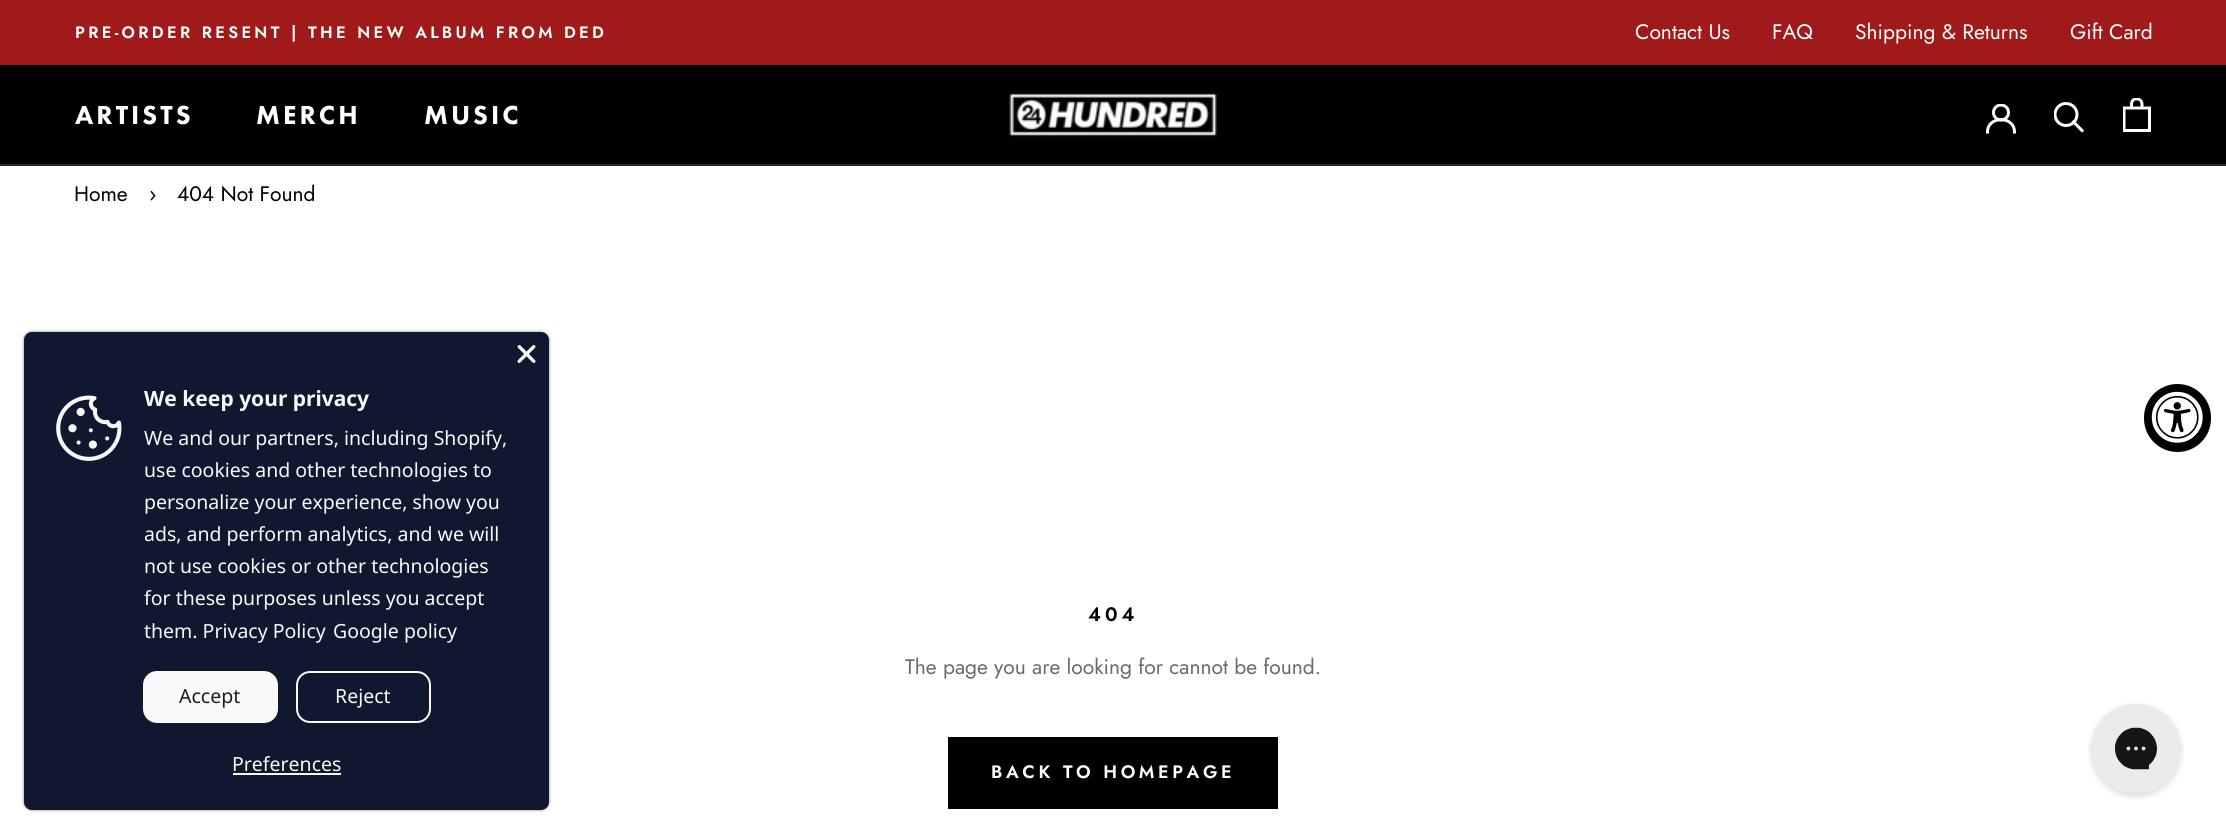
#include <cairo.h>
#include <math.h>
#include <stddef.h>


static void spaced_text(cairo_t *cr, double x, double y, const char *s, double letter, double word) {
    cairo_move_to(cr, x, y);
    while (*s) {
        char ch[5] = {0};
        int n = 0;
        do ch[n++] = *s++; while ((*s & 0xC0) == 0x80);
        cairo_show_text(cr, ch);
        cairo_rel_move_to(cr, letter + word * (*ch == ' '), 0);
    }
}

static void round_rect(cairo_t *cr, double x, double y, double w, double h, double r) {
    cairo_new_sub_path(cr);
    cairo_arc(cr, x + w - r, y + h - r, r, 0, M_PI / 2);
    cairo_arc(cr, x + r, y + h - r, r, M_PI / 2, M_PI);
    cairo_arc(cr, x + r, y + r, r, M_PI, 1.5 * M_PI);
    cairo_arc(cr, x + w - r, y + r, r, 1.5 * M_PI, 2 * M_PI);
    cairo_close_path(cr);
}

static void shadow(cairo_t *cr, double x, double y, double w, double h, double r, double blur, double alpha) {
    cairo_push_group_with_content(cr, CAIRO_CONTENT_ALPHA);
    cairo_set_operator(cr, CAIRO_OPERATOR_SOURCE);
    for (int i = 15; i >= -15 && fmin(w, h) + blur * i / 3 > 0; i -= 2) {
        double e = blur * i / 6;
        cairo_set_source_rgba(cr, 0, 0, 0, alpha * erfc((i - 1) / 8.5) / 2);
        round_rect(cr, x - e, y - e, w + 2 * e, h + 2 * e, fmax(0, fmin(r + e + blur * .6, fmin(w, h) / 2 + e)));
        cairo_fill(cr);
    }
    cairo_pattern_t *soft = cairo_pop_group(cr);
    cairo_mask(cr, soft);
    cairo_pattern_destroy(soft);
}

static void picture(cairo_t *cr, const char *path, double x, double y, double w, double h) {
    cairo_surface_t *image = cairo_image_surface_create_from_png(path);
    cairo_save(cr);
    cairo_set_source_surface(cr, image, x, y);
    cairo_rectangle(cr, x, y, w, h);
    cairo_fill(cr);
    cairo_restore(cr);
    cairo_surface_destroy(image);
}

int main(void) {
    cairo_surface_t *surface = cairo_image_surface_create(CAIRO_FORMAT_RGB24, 2226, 834);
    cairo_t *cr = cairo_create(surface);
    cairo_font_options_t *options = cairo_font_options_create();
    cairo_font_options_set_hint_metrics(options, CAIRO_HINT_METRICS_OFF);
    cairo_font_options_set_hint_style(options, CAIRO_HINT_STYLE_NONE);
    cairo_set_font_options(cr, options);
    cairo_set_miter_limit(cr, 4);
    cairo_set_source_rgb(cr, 1, 1, 1);
    cairo_paint(cr);
    cairo_set_source_rgb(cr, 0.624, 0.102, 0.098);
    cairo_rectangle(cr, 0, 0, 2226, 65);
    cairo_fill(cr);
    cairo_select_font_face(cr, "Jost SemiBold", CAIRO_FONT_SLANT_NORMAL, CAIRO_FONT_WEIGHT_NORMAL);
    cairo_set_font_size(cr, 16.5);
    cairo_set_source_rgb(cr, 1, 1, 1);
    spaced_text(cr, 75, 38, "PRE-ORDER RESENT | THE NEW ALBUM FROM DED", 3.3, 0);
    cairo_select_font_face(cr, "Jost", CAIRO_FONT_SLANT_NORMAL, CAIRO_FONT_WEIGHT_NORMAL);
    cairo_set_font_size(cr, 21);
    cairo_move_to(cr, 1635, 39);
    cairo_show_text(cr, "Contact Us");
    cairo_move_to(cr, 1772, 39);
    cairo_show_text(cr, "FAQ");
    cairo_move_to(cr, 1855, 39);
    cairo_show_text(cr, "Shipping & Returns");
    cairo_move_to(cr, 2070, 39);
    cairo_show_text(cr, "Gift Card");
    cairo_set_source_rgb(cr, 0, 0, 0);
    cairo_rectangle(cr, 0, 65, 2226, 99);
    cairo_fill(cr);
    cairo_set_source_rgb(cr, 0.149, 0.149, 0.149);
    cairo_rectangle(cr, 0, 164, 2226, 2);
    cairo_fill(cr);
    cairo_select_font_face(cr, "Futura PT Black", CAIRO_FONT_SLANT_NORMAL, CAIRO_FONT_WEIGHT_NORMAL);
    cairo_set_font_size(cr, 27);
    cairo_set_source_rgb(cr, 1, 1, 1);
    spaced_text(cr, 75, 124, "ARTISTS", 3, 0);
    spaced_text(cr, 256, 124, "MERCH", 3, 0);
    spaced_text(cr, 424, 124, "MUSIC", 3, 0);
    picture(cr, "img1.png", 1009, 93, 208, 44);
    cairo_new_path(cr);
    cairo_move_to(cr, 1987.5, 132);
    cairo_curve_to(cr, 1987.5, 115.5, 2014.5, 115.5, 2014.5, 132);
    cairo_set_line_width(cr, 3);
    cairo_set_line_cap(cr, CAIRO_LINE_CAP_SQUARE);
    cairo_stroke(cr);
    cairo_save(cr);
    cairo_rectangle(cr, 1986, 104, 30, 30);
    cairo_clip(cr);
    cairo_arc(cr, 2001, 112.5, 7.5, 0, 2 * M_PI);
    cairo_set_line_cap(cr, CAIRO_LINE_CAP_BUTT);
    cairo_stroke(cr);
    cairo_restore(cr);
    cairo_new_path(cr);
    cairo_move_to(cr, 2082, 130.5);
    cairo_line_to(cr, 2073.5, 122);
    cairo_stroke(cr);
    cairo_save(cr);
    cairo_rectangle(cr, 2054, 102, 31, 32);
    cairo_clip(cr);
    cairo_arc(cr, 2066, 114.5, 11, 0, 2 * M_PI);
    cairo_set_line_cap(cr, CAIRO_LINE_CAP_BUTT);
    cairo_stroke(cr);
    cairo_restore(cr);
    picture(cr, "img2.png", 2123, 98, 28, 34);
    cairo_select_font_face(cr, "Jost", CAIRO_FONT_SLANT_NORMAL, CAIRO_FONT_WEIGHT_NORMAL);
    cairo_set_font_size(cr, 21);
    cairo_set_source_rgb(cr, 0, 0, 0);
    cairo_move_to(cr, 74, 201);
    cairo_show_text(cr, "Home");
    cairo_move_to(cr, 149, 201);
    cairo_show_text(cr, "›");
    cairo_move_to(cr, 177, 201);
    cairo_show_text(cr, "404 Not Found");
    cairo_select_font_face(cr, "Jost SemiBold", CAIRO_FONT_SLANT_NORMAL, CAIRO_FONT_WEIGHT_NORMAL);
    cairo_set_font_size(cr, 19.5);
    spaced_text(cr, 1088, 621, "404", 4, 0);
    cairo_select_font_face(cr, "Jost", CAIRO_FONT_SLANT_NORMAL, CAIRO_FONT_WEIGHT_NORMAL);
    cairo_set_font_size(cr, 21);
    cairo_set_source_rgb(cr, 0.416, 0.416, 0.416);
    cairo_move_to(cr, 905, 674);
    cairo_show_text(cr, "The page you are looking for cannot be found.");
    cairo_rectangle(cr, 949, 738, 328, 70);
    cairo_set_source_rgb(cr, 0, 0, 0);
    cairo_set_line_width(cr, 2);
    cairo_set_line_cap(cr, CAIRO_LINE_CAP_BUTT);
    cairo_stroke(cr);
    cairo_rectangle(cr, 950, 739, 326, 68);
    cairo_fill(cr);
    cairo_select_font_face(cr, "Jost SemiBold", CAIRO_FONT_SLANT_NORMAL, CAIRO_FONT_WEIGHT_NORMAL);
    cairo_set_font_size(cr, 18);
    cairo_set_source_rgb(cr, 1, 1, 1);
    spaced_text(cr, 991, 778, "BACK TO HOMEPAGE", 3.6, 0);
    cairo_set_source_rgb(cr, 0, 0, 0);
    round_rect(cr, 2144, 384, 67, 68, 33.5);
    cairo_fill(cr);
    picture(cr, "img3.png", 2151, 391, 52, 52);
    cairo_set_source_rgb(cr, 0, 0, 0);
    shadow(cr, 24, 332, 525, 478, 8, 1.5, 0.5);
    cairo_set_source_rgb(cr, 0.063, 0.094, 0.184);
    round_rect(cr, 24, 332, 525, 478, 8);
    cairo_fill(cr);
    picture(cr, "img4.png", 517, 345, 19, 18);
    picture(cr, "img5.png", 56, 395, 66, 66);
    cairo_select_font_face(cr, "Noto Sans", CAIRO_FONT_SLANT_NORMAL, CAIRO_FONT_WEIGHT_BOLD);
    cairo_set_font_size(cr, 21);
    cairo_set_source_rgb(cr, 0.973, 0.973, 0.973);
    cairo_move_to(cr, 144, 406);
    cairo_show_text(cr, "We keep your privacy");
    cairo_select_font_face(cr, "Noto Sans", CAIRO_FONT_SLANT_NORMAL, CAIRO_FONT_WEIGHT_NORMAL);
    cairo_set_font_size(cr, 19.5);
    cairo_move_to(cr, 144, 445);
    cairo_show_text(cr, "We and our partners, including Shopify,");
    cairo_move_to(cr, 144, 477);
    cairo_show_text(cr, "use cookies and other technologies to");
    cairo_move_to(cr, 144, 509);
    cairo_show_text(cr, "personalize your experience, show you");
    cairo_move_to(cr, 144, 541);
    cairo_show_text(cr, "ads, and perform analytics, and we will");
    cairo_move_to(cr, 144, 573);
    cairo_show_text(cr, "not use cookies or other technologies");
    cairo_move_to(cr, 144, 605);
    cairo_show_text(cr, "for these purposes unless you accept");
    cairo_move_to(cr, 144, 638);
    cairo_show_text(cr, "them. Privacy Policy");
    cairo_move_to(cr, 333, 638);
    cairo_show_text(cr, "Google policy");
    round_rect(cr, 143, 671, 135, 52, 14);
    cairo_fill(cr);
    cairo_set_source_rgb(cr, 0.114, 0.114, 0.114);
    cairo_move_to(cr, 179, 703);
    cairo_show_text(cr, "Accept");
    round_rect(cr, 297, 672, 133, 50, 13);
    cairo_set_source_rgb(cr, 0.973, 0.973, 0.973);
    cairo_stroke(cr);
    cairo_move_to(cr, 335, 703);
    cairo_show_text(cr, "Reject");
    cairo_move_to(cr, 232, 771);
    cairo_show_text(cr, "Preferences");
    cairo_rectangle(cr, 233, 773, 108, 2);
    cairo_fill(cr);
    picture(cr, "img6.png", 2088, 703, 96, 97);
    cairo_surface_write_to_png(surface, "page.png");
    cairo_font_options_destroy(options);
    cairo_destroy(cr);
    cairo_surface_destroy(surface);
    return 0;
}
